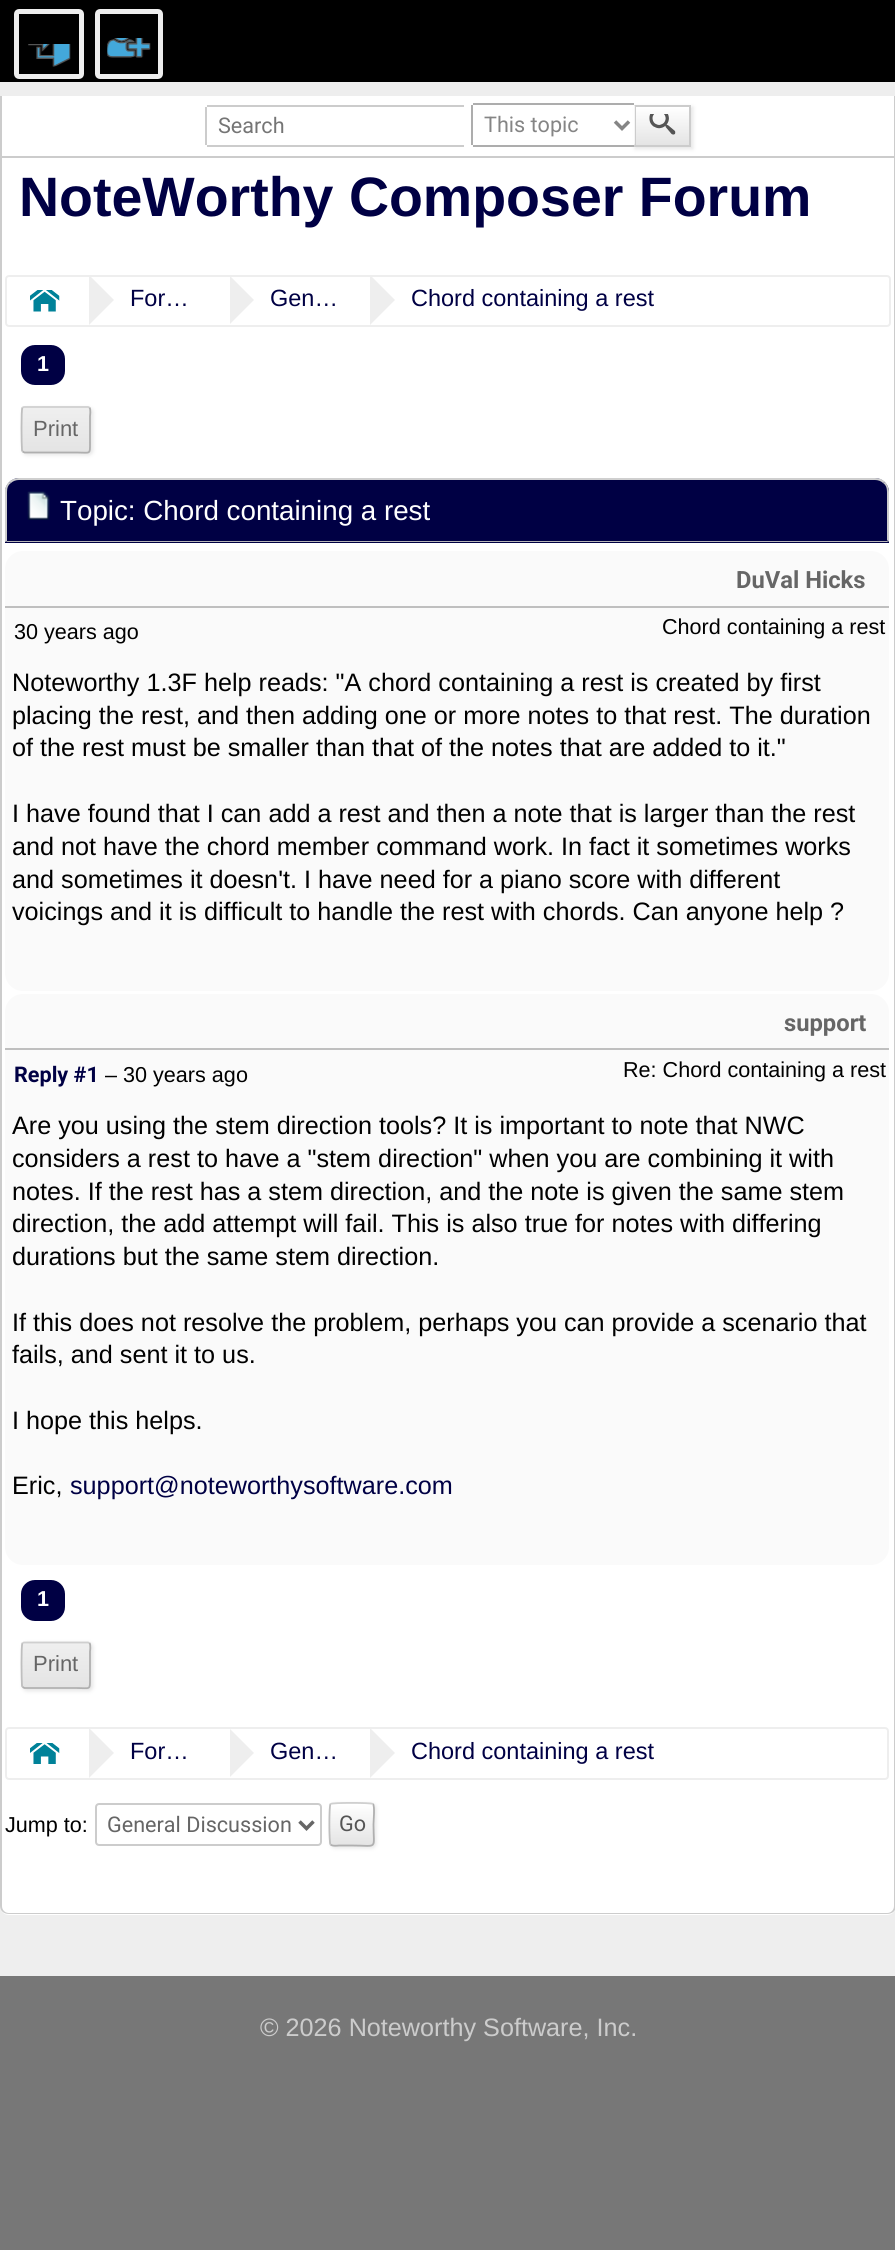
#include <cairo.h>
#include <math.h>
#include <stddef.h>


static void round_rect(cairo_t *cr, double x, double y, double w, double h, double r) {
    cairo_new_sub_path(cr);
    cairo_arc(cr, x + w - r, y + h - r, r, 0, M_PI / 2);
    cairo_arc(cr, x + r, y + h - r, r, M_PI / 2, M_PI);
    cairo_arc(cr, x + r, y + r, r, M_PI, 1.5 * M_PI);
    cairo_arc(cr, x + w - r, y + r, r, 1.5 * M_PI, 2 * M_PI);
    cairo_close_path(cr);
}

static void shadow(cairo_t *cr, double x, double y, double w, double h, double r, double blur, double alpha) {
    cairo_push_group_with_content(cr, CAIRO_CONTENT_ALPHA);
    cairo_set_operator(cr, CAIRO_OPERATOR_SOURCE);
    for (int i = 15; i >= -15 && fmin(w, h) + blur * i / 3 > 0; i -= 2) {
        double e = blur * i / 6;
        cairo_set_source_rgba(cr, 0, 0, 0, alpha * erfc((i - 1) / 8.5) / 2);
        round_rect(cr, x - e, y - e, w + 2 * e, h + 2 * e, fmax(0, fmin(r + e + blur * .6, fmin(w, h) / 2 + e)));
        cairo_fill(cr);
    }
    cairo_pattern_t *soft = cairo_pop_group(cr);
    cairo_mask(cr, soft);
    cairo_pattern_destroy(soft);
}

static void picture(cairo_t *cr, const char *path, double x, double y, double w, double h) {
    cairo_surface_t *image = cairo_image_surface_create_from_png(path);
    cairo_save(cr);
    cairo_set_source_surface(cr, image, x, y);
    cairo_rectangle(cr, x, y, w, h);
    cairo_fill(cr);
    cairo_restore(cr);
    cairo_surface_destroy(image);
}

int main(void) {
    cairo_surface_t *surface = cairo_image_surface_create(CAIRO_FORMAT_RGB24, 895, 2250);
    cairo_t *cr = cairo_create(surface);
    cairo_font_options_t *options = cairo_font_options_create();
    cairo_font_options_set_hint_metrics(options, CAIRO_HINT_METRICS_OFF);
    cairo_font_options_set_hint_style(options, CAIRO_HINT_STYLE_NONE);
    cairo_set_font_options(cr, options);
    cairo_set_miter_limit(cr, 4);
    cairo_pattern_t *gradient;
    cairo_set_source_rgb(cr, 0.467, 0.467, 0.467);
    cairo_paint(cr);
    cairo_set_source_rgb(cr, 0.933, 0.933, 0.933);
    cairo_rectangle(cr, 0, 82, 895, 1894);
    cairo_fill(cr);
    cairo_set_source_rgb(cr, 0, 0, 0);
    cairo_rectangle(cr, 0, 0, 895, 82);
    cairo_fill(cr);
    round_rect(cr, 16.5, 11.5, 65, 65, 2.5);
    cairo_set_source_rgb(cr, 0.933, 0.933, 0.933);
    cairo_set_line_width(cr, 5);
    cairo_stroke(cr);
    picture(cr, "img1.png", 28, 44, 43, 23);
    round_rect(cr, 97.5, 11.5, 63, 65, 2.5);
    cairo_stroke(cr);
    picture(cr, "img2.png", 107, 38, 44, 20);
    cairo_set_source_rgb(cr, 1, 1, 1);
    cairo_rectangle(cr, 2, 96, 892, 60);
    cairo_fill(cr);
    cairo_set_source_rgb(cr, 0.8, 0.8, 0.8);
    cairo_rectangle(cr, 894, 96, 1, 142);
    cairo_fill(cr);
    cairo_rectangle(cr, 0, 96, 2, 142);
    cairo_fill(cr);
    cairo_rectangle(cr, 2, 156, 892, 2);
    cairo_fill(cr);
    cairo_rectangle(cr, 207, 105, 257, 2);
    cairo_fill(cr);
    cairo_rectangle(cr, 207, 145, 257, 2);
    cairo_fill(cr);
    cairo_rectangle(cr, 205, 107, 2, 38);
    cairo_fill(cr);
    cairo_select_font_face(cr, "Roboto", CAIRO_FONT_SLANT_NORMAL, CAIRO_FONT_WEIGHT_NORMAL);
    cairo_set_font_size(cr, 21.6);
    cairo_set_source_rgb(cr, 0.459, 0.459, 0.459);
    cairo_move_to(cr, 218, 133);
    cairo_show_text(cr, "Search");
    cairo_set_source_rgb(cr, 0.898, 0.898, 0.898);
    shadow(cr, 635, 107, 58, 42, 0, 2, 1);
    gradient = cairo_pattern_create_linear(662, 107, 662, 145);
    cairo_pattern_add_color_stop_rgba(gradient, 0, 1, 1, 1, 1);
    cairo_pattern_add_color_stop_rgba(gradient, 1, 0.894, 0.894, 0.894, 1);
    cairo_set_source(cr, gradient);
    cairo_pattern_destroy(gradient);
    cairo_rectangle(cr, 636, 107, 53, 38);
    cairo_fill(cr);
    cairo_rectangle(cr, 635, 106, 55, 40);
    cairo_set_source_rgb(cr, 0.8, 0.8, 0.8);
    cairo_set_line_width(cr, 2);
    cairo_stroke(cr);
    cairo_set_source_rgba(cr, 1, 1, 1, 0.8);
    round_rect(cr, 471, 103, 164, 44, 4);
    cairo_fill(cr);
    cairo_set_source_rgb(cr, 0.678, 0.678, 0.678);
    cairo_rectangle(cr, 473, 103, 161, 2);
    cairo_fill(cr);
    cairo_rectangle(cr, 473, 145, 161, 2);
    cairo_fill(cr);
    cairo_rectangle(cr, 471, 105, 2, 40);
    cairo_fill(cr);
    cairo_new_path(cr);
    cairo_move_to(cr, 615, 121.5);
    cairo_line_to(cr, 622, 128.5);
    cairo_line_to(cr, 629, 121.5);
    cairo_set_source_rgb(cr, 0.522, 0.522, 0.522);
    cairo_set_line_width(cr, 3.5);
    cairo_stroke(cr);
    cairo_move_to(cr, 484, 132);
    cairo_show_text(cr, "This topic");
    picture(cr, "img3.png", 649, 114, 27, 21);
    cairo_set_source_rgb(cr, 1, 1, 1);
    cairo_rectangle(cr, 2, 158, 892, 80);
    cairo_fill(cr);
    cairo_select_font_face(cr, "Liberation Sans", CAIRO_FONT_SLANT_NORMAL, CAIRO_FONT_WEIGHT_BOLD);
    cairo_set_font_size(cr, 55.5);
    cairo_set_source_rgb(cr, 0, 0, 0.267);
    cairo_move_to(cr, 19, 216);
    cairo_show_text(cr, "NoteWorthy Composer Forum");
    cairo_set_source_rgb(cr, 1, 1, 1);
    cairo_new_path(cr);
    cairo_move_to(cr, 0, 238);
    cairo_line_to(cr, 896, 238);
    cairo_line_to(cr, 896, 1906);
    cairo_curve_to(cr, 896, 1911, 892, 1915, 887, 1915);
    cairo_line_to(cr, 9, 1915);
    cairo_curve_to(cr, 4, 1915, 0, 1911, 0, 1906);
    cairo_close_path(cr);
    cairo_fill(cr);
    cairo_set_source_rgb(cr, 0.8, 0.8, 0.8);
    cairo_set_fill_rule(cr, CAIRO_FILL_RULE_EVEN_ODD);
    cairo_new_path(cr);
    cairo_move_to(cr, 0, 238);
    cairo_line_to(cr, 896, 238);
    cairo_line_to(cr, 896, 1906);
    cairo_curve_to(cr, 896, 1911, 892, 1914, 887, 1914);
    cairo_line_to(cr, 9, 1914);
    cairo_curve_to(cr, 4, 1914, 0, 1911, 0, 1906);
    cairo_close_path(cr);
    cairo_move_to(cr, 2, 238);
    cairo_line_to(cr, 894, 238);
    cairo_line_to(cr, 894, 1906);
    cairo_curve_to(cr, 894, 1910, 891, 1913, 887, 1913);
    cairo_line_to(cr, 9, 1913);
    cairo_curve_to(cr, 5, 1913, 2, 1910, 2, 1906);
    cairo_close_path(cr);
    cairo_fill(cr);
    round_rect(cr, 6, 276, 884, 50, 3);
    cairo_set_source_rgb(cr, 0.933, 0.933, 0.933);
    cairo_set_line_width(cr, 2);
    cairo_stroke(cr);
    picture(cr, "img4.png", 30, 290, 30, 22);
    gradient = cairo_pattern_create_linear(64, 300, 114, 300);
    cairo_pattern_add_color_stop_rgba(gradient, 0, 1, 1, 1, 1);
    cairo_pattern_add_color_stop_rgba(gradient, 0.5, 1, 1, 1, 1);
    cairo_pattern_add_color_stop_rgba(gradient, 0.5, 0.933, 0.933, 0.933, 1);
    cairo_pattern_add_color_stop_rgba(gradient, 1, 0.933, 0.933, 0.933, 1);
    cairo_set_source(cr, gradient);
    cairo_pattern_destroy(gradient);
    cairo_set_fill_rule(cr, CAIRO_FILL_RULE_WINDING);
    cairo_new_path(cr);
    cairo_move_to(cr, 91, 277);
    cairo_line_to(cr, 114, 300);
    cairo_line_to(cr, 89, 325);
    cairo_line_to(cr, 64, 300);
    cairo_line_to(cr, 87, 277);
    cairo_close_path(cr);
    cairo_fill(cr);
    cairo_select_font_face(cr, "Liberation Sans", CAIRO_FONT_SLANT_NORMAL, CAIRO_FONT_WEIGHT_NORMAL);
    cairo_set_font_size(cr, 23.5);
    cairo_set_source_rgb(cr, 0, 0, 0.267);
    cairo_move_to(cr, 130, 306);
    cairo_show_text(cr, "For…");
    gradient = cairo_pattern_create_linear(205, 300, 254, 300);
    cairo_pattern_add_color_stop_rgba(gradient, 0, 1, 1, 1, 1);
    cairo_pattern_add_color_stop_rgba(gradient, 0.5, 1, 1, 1, 1);
    cairo_pattern_add_color_stop_rgba(gradient, 0.5, 0.933, 0.933, 0.933, 1);
    cairo_pattern_add_color_stop_rgba(gradient, 1, 0.933, 0.933, 0.933, 1);
    cairo_set_source(cr, gradient);
    cairo_pattern_destroy(gradient);
    cairo_new_path(cr);
    cairo_move_to(cr, 231, 277);
    cairo_line_to(cr, 254, 300);
    cairo_line_to(cr, 229, 325);
    cairo_line_to(cr, 205, 300);
    cairo_line_to(cr, 227, 277);
    cairo_close_path(cr);
    cairo_fill(cr);
    cairo_set_source_rgb(cr, 0, 0, 0.267);
    cairo_move_to(cr, 270, 306);
    cairo_show_text(cr, "Gen…");
    gradient = cairo_pattern_create_linear(345, 300, 395, 300);
    cairo_pattern_add_color_stop_rgba(gradient, 0, 1, 1, 1, 1);
    cairo_pattern_add_color_stop_rgba(gradient, 0.5, 1, 1, 1, 1);
    cairo_pattern_add_color_stop_rgba(gradient, 0.5, 0.933, 0.933, 0.933, 1);
    cairo_pattern_add_color_stop_rgba(gradient, 1, 0.933, 0.933, 0.933, 1);
    cairo_set_source(cr, gradient);
    cairo_pattern_destroy(gradient);
    cairo_new_path(cr);
    cairo_move_to(cr, 372, 277);
    cairo_line_to(cr, 395, 300);
    cairo_line_to(cr, 370, 325);
    cairo_line_to(cr, 345, 300);
    cairo_line_to(cr, 368, 277);
    cairo_close_path(cr);
    cairo_fill(cr);
    cairo_set_source_rgb(cr, 0, 0, 0.267);
    cairo_move_to(cr, 411, 306);
    cairo_show_text(cr, "Chord containing a rest");
    round_rect(cr, 21, 345, 44, 40, 14);
    cairo_fill(cr);
    cairo_select_font_face(cr, "Liberation Sans", CAIRO_FONT_SLANT_NORMAL, CAIRO_FONT_WEIGHT_BOLD);
    cairo_set_font_size(cr, 21.6);
    cairo_set_source_rgb(cr, 1, 1, 1);
    cairo_move_to(cr, 37, 371);
    cairo_show_text(cr, "1");
    cairo_set_source_rgb(cr, 0.898, 0.898, 0.898);
    shadow(cr, 23, 408, 70, 47, 4, 2, 1);
    cairo_save(cr);
    round_rect(cr, 21, 406, 70, 47, 4);
    cairo_clip(cr);
    gradient = cairo_pattern_create_linear(56, 408, 56, 452);
    cairo_pattern_add_color_stop_rgba(gradient, 0, 0.937, 0.937, 0.937, 1);
    cairo_pattern_add_color_stop_rgba(gradient, 1, 0.894, 0.894, 0.894, 1);
    cairo_set_source(cr, gradient);
    cairo_pattern_destroy(gradient);
    cairo_rectangle(cr, 21, 408, 70, 44);
    cairo_fill(cr);
    cairo_restore(cr);
    cairo_new_path(cr);
    cairo_move_to(cr, 22.5, 407.5);
    cairo_line_to(cr, 24, 407);
    cairo_line_to(cr, 88, 407);
    cairo_line_to(cr, 89.5, 407.5);
    cairo_set_source_rgb(cr, 0.812, 0.812, 0.812);
    cairo_set_line_width(cr, 1.8);
    cairo_stroke(cr);
    cairo_new_path(cr);
    cairo_move_to(cr, 89.5, 407.5);
    cairo_curve_to(cr, 91, 409.5, 90, 416, 90, 416);
    cairo_line_to(cr, 90, 443);
    cairo_curve_to(cr, 90, 455, 90.5, 452.5, 77, 452.5);
    cairo_line_to(cr, 24.5, 452.5);
    cairo_line_to(cr, 22.5, 451.5);
    cairo_set_source_rgb(cr, 0.686, 0.686, 0.686);
    cairo_stroke(cr);
    cairo_new_path(cr);
    cairo_move_to(cr, 22.5, 451.5);
    cairo_line_to(cr, 22, 450);
    cairo_curve_to(cr, 21.5, 446, 21, 409, 22.5, 407.5);
    cairo_set_source_rgb(cr, 0.749, 0.749, 0.749);
    cairo_stroke(cr);
    cairo_select_font_face(cr, "Liberation Sans", CAIRO_FONT_SLANT_NORMAL, CAIRO_FONT_WEIGHT_NORMAL);
    cairo_set_font_size(cr, 22);
    cairo_set_source_rgb(cr, 0.4, 0.4, 0.4);
    cairo_move_to(cr, 33, 436);
    cairo_show_text(cr, "Print");
    cairo_set_source_rgb(cr, 0, 0, 0.267);
    cairo_new_path(cr);
    cairo_move_to(cr, 19, 478);
    cairo_line_to(cr, 875, 478);
    cairo_curve_to(cr, 882.5, 478, 889, 484.5, 889, 492);
    cairo_line_to(cr, 889, 543);
    cairo_line_to(cr, 5, 543);
    cairo_line_to(cr, 5, 492);
    cairo_curve_to(cr, 5, 484.5, 11.5, 478, 19, 478);
    cairo_close_path(cr);
    cairo_fill(cr);
    cairo_set_source_rgb(cr, 0.812, 0.812, 0.812);
    cairo_new_path(cr);
    cairo_move_to(cr, 19, 478);
    cairo_curve_to(cr, 16, 478, 12, 479, 9, 482);
    cairo_line_to(cr, 11, 483);
    cairo_curve_to(cr, 13, 481, 16, 480, 19, 480);
    cairo_line_to(cr, 875, 480);
    cairo_curve_to(cr, 878, 480, 881, 481, 883, 483);
    cairo_line_to(cr, 885, 482);
    cairo_curve_to(cr, 882, 479, 879, 478, 875, 478);
    cairo_close_path(cr);
    cairo_fill(cr);
    cairo_set_source_rgb(cr, 0.8, 0.8, 0.8);
    cairo_new_path(cr);
    cairo_move_to(cr, 885, 482);
    cairo_curve_to(cr, 887, 484, 889, 488, 889, 492);
    cairo_line_to(cr, 889, 542);
    cairo_line_to(cr, 887, 540);
    cairo_line_to(cr, 887, 492);
    cairo_curve_to(cr, 887, 488, 886, 485, 883, 483);
    cairo_close_path(cr);
    cairo_fill(cr);
    cairo_set_source_rgb(cr, 0.718, 0.718, 0.718);
    cairo_new_path(cr);
    cairo_move_to(cr, 888, 542);
    cairo_line_to(cr, 6, 542);
    cairo_line_to(cr, 7, 541);
    cairo_line_to(cr, 887, 541);
    cairo_line_to(cr, 887, 540);
    cairo_close_path(cr);
    cairo_fill(cr);
    cairo_set_source_rgb(cr, 0.8, 0.8, 0.8);
    cairo_new_path(cr);
    cairo_move_to(cr, 5, 489);
    cairo_curve_to(cr, 6, 486, 7, 484, 9, 482);
    cairo_line_to(cr, 11, 483);
    cairo_curve_to(cr, 8, 485, 7, 488, 7, 492);
    cairo_line_to(cr, 7, 541);
    cairo_line_to(cr, 5, 542);
    cairo_close_path(cr);
    cairo_fill(cr);
    picture(cr, "img5.png", 27, 491, 23, 29);
    cairo_set_font_size(cr, 27.75);
    cairo_set_source_rgb(cr, 1, 1, 1);
    cairo_move_to(cr, 60, 520);
    cairo_show_text(cr, "Topic: Chord containing a rest");
    cairo_set_source_rgb(cr, 0.98, 0.98, 0.98);
    round_rect(cr, 5, 551, 884, 440, 18);
    cairo_fill(cr);
    cairo_select_font_face(cr, "Roboto", CAIRO_FONT_SLANT_NORMAL, CAIRO_FONT_WEIGHT_BOLD);
    cairo_set_font_size(cr, 23.75);
    cairo_set_source_rgb(cr, 0.4, 0.4, 0.4);
    cairo_move_to(cr, 736, 588);
    cairo_show_text(cr, "DuVal Hicks");
    cairo_set_source_rgb(cr, 0.749, 0.749, 0.749);
    cairo_rectangle(cr, 5, 606, 884, 2);
    cairo_fill(cr);
    cairo_select_font_face(cr, "Liberation Sans", CAIRO_FONT_SLANT_NORMAL, CAIRO_FONT_WEIGHT_NORMAL);
    cairo_set_font_size(cr, 21.6);
    cairo_set_source_rgb(cr, 0, 0, 0);
    cairo_move_to(cr, 14, 639);
    cairo_show_text(cr, "30 years ago");
    cairo_move_to(cr, 662, 634);
    cairo_show_text(cr, "Chord containing a rest");
    cairo_set_font_size(cr, 25.2);
    cairo_move_to(cr, 12, 691);
    cairo_show_text(cr, "Noteworthy 1.3F help reads: \"A chord containing a rest is created by first");
    cairo_move_to(cr, 12, 724);
    cairo_show_text(cr, "placing the rest, and then adding one or more notes to that rest. The duration");
    cairo_move_to(cr, 12, 756);
    cairo_show_text(cr, "of the rest must be smaller than that of the notes that are added to it.\"");
    cairo_move_to(cr, 12, 822);
    cairo_show_text(cr, "I have found that I can add a rest and then a note that is larger than the rest");
    cairo_move_to(cr, 12, 855);
    cairo_show_text(cr, "and not have the chord member command work. In fact it sometimes works");
    cairo_move_to(cr, 12, 888);
    cairo_show_text(cr, "and sometimes it doesn't. I have need for a piano score with different");
    cairo_move_to(cr, 12, 920);
    cairo_show_text(cr, "voicings and it is difficult to handle the rest with chords. Can anyone help ?");
    cairo_set_source_rgb(cr, 0.98, 0.98, 0.98);
    round_rect(cr, 5, 994, 884, 571, 18);
    cairo_fill(cr);
    cairo_select_font_face(cr, "Roboto", CAIRO_FONT_SLANT_NORMAL, CAIRO_FONT_WEIGHT_BOLD);
    cairo_set_font_size(cr, 23.75);
    cairo_set_source_rgb(cr, 0.4, 0.4, 0.4);
    cairo_move_to(cr, 784, 1031);
    cairo_show_text(cr, "support");
    cairo_set_source_rgb(cr, 0.749, 0.749, 0.749);
    cairo_rectangle(cr, 5, 1048, 884, 2);
    cairo_fill(cr);
    cairo_set_font_size(cr, 21.6);
    cairo_set_source_rgb(cr, 0, 0, 0.267);
    cairo_move_to(cr, 14, 1082);
    cairo_show_text(cr, "Reply #1");
    cairo_select_font_face(cr, "Liberation Sans", CAIRO_FONT_SLANT_NORMAL, CAIRO_FONT_WEIGHT_NORMAL);
    cairo_set_source_rgb(cr, 0, 0, 0);
    cairo_move_to(cr, 105, 1082);
    cairo_show_text(cr, "– 30 years ago");
    cairo_move_to(cr, 623, 1077);
    cairo_show_text(cr, "Re: Chord containing a rest");
    cairo_set_font_size(cr, 25.2);
    cairo_move_to(cr, 12, 1134);
    cairo_show_text(cr, "Are you using the stem direction tools? It is important to note that NWC");
    cairo_move_to(cr, 12, 1167);
    cairo_show_text(cr, "considers a rest to have a \"stem direction\" when you are combining it with");
    cairo_move_to(cr, 12, 1200);
    cairo_show_text(cr, "notes. If the rest has a stem direction, and the note is given the same stem");
    cairo_move_to(cr, 12, 1232);
    cairo_show_text(cr, "direction, the add attempt will fail. This is also true for notes with differing");
    cairo_move_to(cr, 12, 1265);
    cairo_show_text(cr, "durations but the same stem direction.");
    cairo_move_to(cr, 12, 1331);
    cairo_show_text(cr, "If this does not resolve the problem, perhaps you can provide a scenario that");
    cairo_move_to(cr, 12, 1363);
    cairo_show_text(cr, "fails, and sent it to us.");
    cairo_move_to(cr, 12, 1429);
    cairo_show_text(cr, "I hope this helps.");
    cairo_move_to(cr, 12, 1494);
    cairo_show_text(cr, "Eric,");
    cairo_set_source_rgb(cr, 0, 0, 0.267);
    cairo_move_to(cr, 70, 1494);
    cairo_show_text(cr, "support@noteworthysoftware.com");
    round_rect(cr, 21, 1580, 44, 41, 14);
    cairo_fill(cr);
    cairo_select_font_face(cr, "Liberation Sans", CAIRO_FONT_SLANT_NORMAL, CAIRO_FONT_WEIGHT_BOLD);
    cairo_set_font_size(cr, 21.6);
    cairo_set_source_rgb(cr, 1, 1, 1);
    cairo_move_to(cr, 37, 1606);
    cairo_show_text(cr, "1");
    cairo_set_source_rgb(cr, 0.898, 0.898, 0.898);
    shadow(cr, 23, 1643, 70, 48, 4, 2, 1);
    cairo_save(cr);
    round_rect(cr, 21, 1642, 70, 47, 4);
    cairo_clip(cr);
    gradient = cairo_pattern_create_linear(56, 1643, 56, 1687);
    cairo_pattern_add_color_stop_rgba(gradient, 0, 0.937, 0.937, 0.937, 1);
    cairo_pattern_add_color_stop_rgba(gradient, 1, 0.894, 0.894, 0.894, 1);
    cairo_set_source(cr, gradient);
    cairo_pattern_destroy(gradient);
    cairo_rectangle(cr, 21, 1643, 70, 44);
    cairo_fill(cr);
    gradient = cairo_pattern_create_linear(56, 1687, 56, 1731);
    cairo_pattern_add_color_stop_rgba(gradient, 0, 0.937, 0.937, 0.937, 1);
    cairo_pattern_add_color_stop_rgba(gradient, 1, 0.894, 0.894, 0.894, 1);
    cairo_set_source(cr, gradient);
    cairo_pattern_destroy(gradient);
    cairo_rectangle(cr, 21, 1687, 70, 2);
    cairo_fill(cr);
    cairo_restore(cr);
    cairo_new_path(cr);
    cairo_move_to(cr, 22.5, 1643);
    cairo_line_to(cr, 24, 1642.5);
    cairo_line_to(cr, 88, 1642.5);
    cairo_line_to(cr, 89.5, 1643);
    cairo_set_source_rgb(cr, 0.812, 0.812, 0.812);
    cairo_stroke(cr);
    cairo_new_path(cr);
    cairo_move_to(cr, 89.5, 1643);
    cairo_curve_to(cr, 91, 1645, 90, 1651.5, 90, 1651.5);
    cairo_line_to(cr, 90, 1678.5);
    cairo_curve_to(cr, 90, 1690.5, 90.5, 1688, 77, 1688);
    cairo_line_to(cr, 24.5, 1688);
    cairo_line_to(cr, 22.5, 1687);
    cairo_set_source_rgb(cr, 0.686, 0.686, 0.686);
    cairo_stroke(cr);
    cairo_new_path(cr);
    cairo_move_to(cr, 22.5, 1687);
    cairo_line_to(cr, 22, 1685.5);
    cairo_curve_to(cr, 21.5, 1681.5, 21, 1644.5, 22.5, 1643);
    cairo_set_source_rgb(cr, 0.749, 0.749, 0.749);
    cairo_stroke(cr);
    cairo_select_font_face(cr, "Liberation Sans", CAIRO_FONT_SLANT_NORMAL, CAIRO_FONT_WEIGHT_NORMAL);
    cairo_set_font_size(cr, 22);
    cairo_set_source_rgb(cr, 0.4, 0.4, 0.4);
    cairo_move_to(cr, 33, 1671);
    cairo_show_text(cr, "Print");
    round_rect(cr, 6, 1728, 882, 51, 3);
    cairo_set_source_rgb(cr, 0.933, 0.933, 0.933);
    cairo_set_line_width(cr, 2);
    cairo_stroke(cr);
    picture(cr, "img6.png", 30, 1743, 30, 21);
    gradient = cairo_pattern_create_linear(64, 1753, 114, 1753);
    cairo_pattern_add_color_stop_rgba(gradient, 0, 1, 1, 1, 1);
    cairo_pattern_add_color_stop_rgba(gradient, 0.5, 1, 1, 1, 1);
    cairo_pattern_add_color_stop_rgba(gradient, 0.5, 0.933, 0.933, 0.933, 1);
    cairo_pattern_add_color_stop_rgba(gradient, 1, 0.933, 0.933, 0.933, 1);
    cairo_set_source(cr, gradient);
    cairo_pattern_destroy(gradient);
    cairo_new_path(cr);
    cairo_move_to(cr, 90, 1729);
    cairo_line_to(cr, 114, 1753);
    cairo_line_to(cr, 89, 1778);
    cairo_line_to(cr, 64, 1753);
    cairo_line_to(cr, 88, 1729);
    cairo_close_path(cr);
    cairo_fill(cr);
    cairo_set_font_size(cr, 23.5);
    cairo_set_source_rgb(cr, 0, 0, 0.267);
    cairo_move_to(cr, 130, 1759);
    cairo_show_text(cr, "For…");
    gradient = cairo_pattern_create_linear(205, 1753, 254, 1753);
    cairo_pattern_add_color_stop_rgba(gradient, 0, 1, 1, 1, 1);
    cairo_pattern_add_color_stop_rgba(gradient, 0.5, 1, 1, 1, 1);
    cairo_pattern_add_color_stop_rgba(gradient, 0.5, 0.933, 0.933, 0.933, 1);
    cairo_pattern_add_color_stop_rgba(gradient, 1, 0.933, 0.933, 0.933, 1);
    cairo_set_source(cr, gradient);
    cairo_pattern_destroy(gradient);
    cairo_new_path(cr);
    cairo_move_to(cr, 230, 1729);
    cairo_line_to(cr, 254, 1753);
    cairo_line_to(cr, 229, 1778);
    cairo_line_to(cr, 205, 1753);
    cairo_line_to(cr, 228, 1729);
    cairo_close_path(cr);
    cairo_fill(cr);
    cairo_set_source_rgb(cr, 0, 0, 0.267);
    cairo_move_to(cr, 270, 1759);
    cairo_show_text(cr, "Gen…");
    gradient = cairo_pattern_create_linear(345, 1753, 395, 1753);
    cairo_pattern_add_color_stop_rgba(gradient, 0, 1, 1, 1, 1);
    cairo_pattern_add_color_stop_rgba(gradient, 0.5, 1, 1, 1, 1);
    cairo_pattern_add_color_stop_rgba(gradient, 0.5, 0.933, 0.933, 0.933, 1);
    cairo_pattern_add_color_stop_rgba(gradient, 1, 0.933, 0.933, 0.933, 1);
    cairo_set_source(cr, gradient);
    cairo_pattern_destroy(gradient);
    cairo_new_path(cr);
    cairo_move_to(cr, 371, 1729);
    cairo_line_to(cr, 395, 1753);
    cairo_line_to(cr, 370, 1778);
    cairo_line_to(cr, 345, 1753);
    cairo_line_to(cr, 369, 1729);
    cairo_close_path(cr);
    cairo_fill(cr);
    cairo_set_source_rgb(cr, 0, 0, 0.267);
    cairo_move_to(cr, 411, 1759);
    cairo_show_text(cr, "Chord containing a rest");
    cairo_set_font_size(cr, 21.6);
    cairo_set_source_rgb(cr, 0, 0, 0);
    cairo_move_to(cr, 5, 1832);
    cairo_show_text(cr, "Jump to:");
    round_rect(cr, 96, 1804, 225, 41, 3);
    cairo_set_source_rgb(cr, 0.8, 0.8, 0.8);
    cairo_stroke(cr);
    cairo_new_path(cr);
    cairo_move_to(cr, 299.5, 1821.5);
    cairo_line_to(cr, 306.5, 1828.5);
    cairo_line_to(cr, 313.5, 1821.5);
    cairo_set_source_rgb(cr, 0.4, 0.4, 0.4);
    cairo_set_line_width(cr, 3.5);
    cairo_stroke(cr);
    cairo_select_font_face(cr, "Roboto", CAIRO_FONT_SLANT_NORMAL, CAIRO_FONT_WEIGHT_NORMAL);
    cairo_move_to(cr, 107, 1832);
    cairo_show_text(cr, "General Discussion");
    cairo_set_source_rgb(cr, 0.898, 0.898, 0.898);
    shadow(cr, 331, 1804, 45, 44, 4, 2, 1);
    cairo_save(cr);
    round_rect(cr, 329, 1803, 46, 43, 4);
    cairo_clip(cr);
    gradient = cairo_pattern_create_linear(352, 1804, 352, 1845);
    cairo_pattern_add_color_stop_rgba(gradient, 0, 1, 1, 1, 1);
    cairo_pattern_add_color_stop_rgba(gradient, 1, 0.894, 0.894, 0.894, 1);
    cairo_set_source(cr, gradient);
    cairo_pattern_destroy(gradient);
    cairo_rectangle(cr, 329, 1804, 46, 41);
    cairo_fill(cr);
    cairo_restore(cr);
    cairo_new_path(cr);
    cairo_move_to(cr, 330.5, 1804);
    cairo_curve_to(cr, 332, 1802.5, 371.5, 1802.5, 373, 1804);
    cairo_set_source_rgb(cr, 0.812, 0.812, 0.812);
    cairo_set_line_width(cr, 1.8);
    cairo_stroke(cr);
    cairo_new_path(cr);
    cairo_move_to(cr, 373, 1804);
    cairo_curve_to(cr, 375, 1806, 373.5, 1821, 373.5, 1824.5);
    cairo_curve_to(cr, 373.5, 1850.5, 378.5, 1845.5, 352, 1845.5);
    cairo_line_to(cr, 339, 1845.5);
    cairo_curve_to(cr, 338.5, 1845.5, 332.5, 1846.5, 330.5, 1844.5);
    cairo_set_source_rgb(cr, 0.686, 0.686, 0.686);
    cairo_stroke(cr);
    cairo_new_path(cr);
    cairo_move_to(cr, 330.5, 1844.5);
    cairo_curve_to(cr, 329, 1843, 329, 1805.5, 330.5, 1804);
    cairo_set_source_rgb(cr, 0.749, 0.749, 0.749);
    cairo_stroke(cr);
    cairo_set_source_rgb(cr, 0.333, 0.333, 0.333);
    cairo_move_to(cr, 339, 1831);
    cairo_show_text(cr, "Go");
    cairo_select_font_face(cr, "Liberation Sans", CAIRO_FONT_SLANT_NORMAL, CAIRO_FONT_WEIGHT_NORMAL);
    cairo_set_font_size(cr, 25.2);
    cairo_set_source_rgb(cr, 0.8, 0.8, 0.8);
    cairo_move_to(cr, 260, 2036);
    cairo_show_text(cr, "© 2026 Noteworthy Software, Inc.");
    cairo_surface_write_to_png(surface, "page.png");
    cairo_font_options_destroy(options);
    cairo_destroy(cr);
    cairo_surface_destroy(surface);
    return 0;
}
